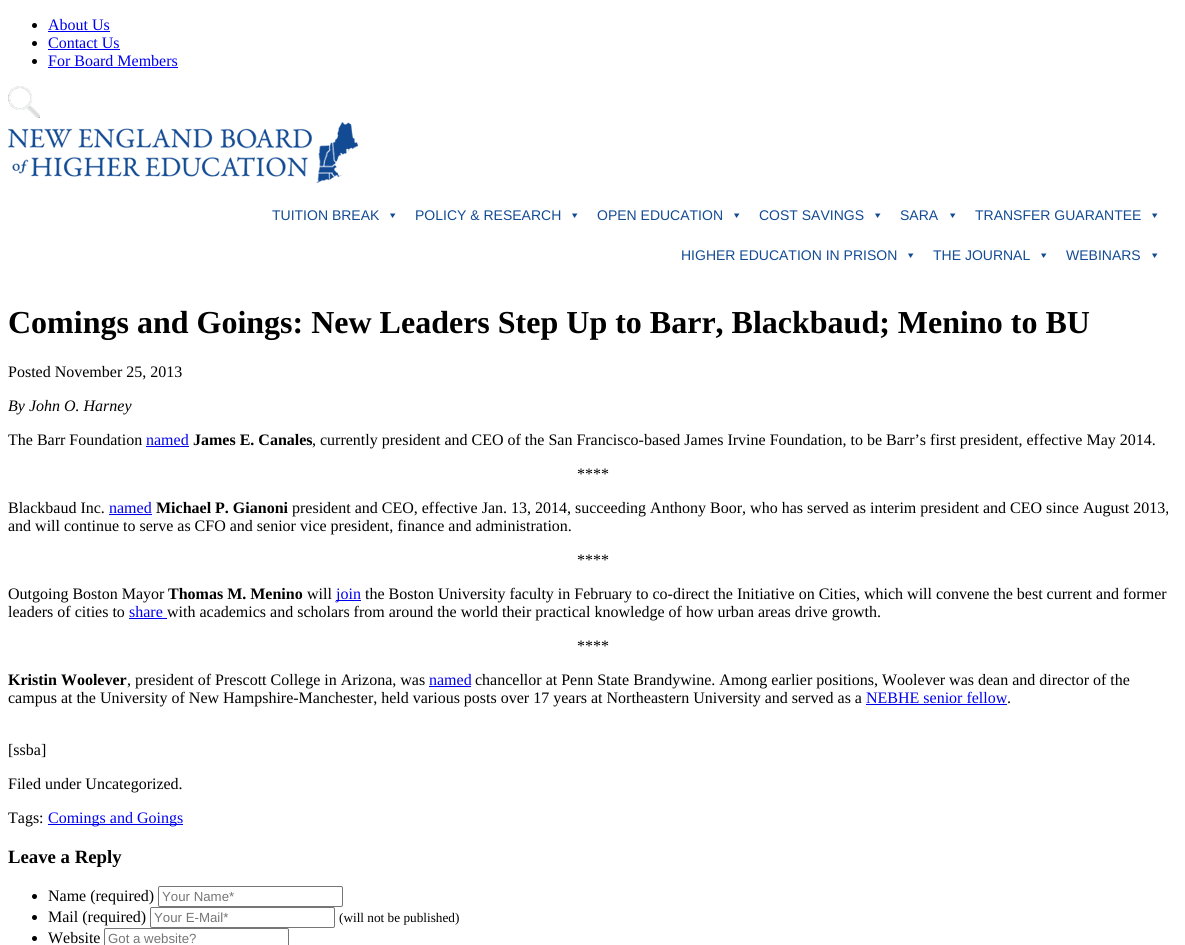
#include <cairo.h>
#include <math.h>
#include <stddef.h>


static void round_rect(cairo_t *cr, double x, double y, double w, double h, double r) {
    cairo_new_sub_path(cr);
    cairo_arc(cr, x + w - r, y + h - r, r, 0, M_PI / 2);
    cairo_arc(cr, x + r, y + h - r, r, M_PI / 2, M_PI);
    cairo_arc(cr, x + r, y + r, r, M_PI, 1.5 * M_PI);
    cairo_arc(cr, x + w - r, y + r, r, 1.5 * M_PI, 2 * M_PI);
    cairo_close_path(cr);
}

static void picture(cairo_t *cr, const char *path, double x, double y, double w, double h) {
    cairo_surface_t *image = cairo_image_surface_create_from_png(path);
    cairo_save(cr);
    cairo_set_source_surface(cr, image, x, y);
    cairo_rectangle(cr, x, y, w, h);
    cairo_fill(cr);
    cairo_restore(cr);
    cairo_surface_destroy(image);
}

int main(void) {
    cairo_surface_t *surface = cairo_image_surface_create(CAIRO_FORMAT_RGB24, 1185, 945);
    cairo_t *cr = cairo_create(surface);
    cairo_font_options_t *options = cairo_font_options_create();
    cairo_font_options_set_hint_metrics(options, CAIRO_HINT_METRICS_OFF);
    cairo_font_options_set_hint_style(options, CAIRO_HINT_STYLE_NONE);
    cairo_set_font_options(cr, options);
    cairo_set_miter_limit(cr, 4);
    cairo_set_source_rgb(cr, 1, 1, 1);
    cairo_paint(cr);
    cairo_set_source_rgb(cr, 0, 0, 0);
    cairo_arc(cr, 34.5, 25.5, 2.5, 0, 2 * M_PI);
    cairo_fill(cr);
    cairo_select_font_face(cr, "Liberation Serif", CAIRO_FONT_SLANT_NORMAL, CAIRO_FONT_WEIGHT_NORMAL);
    cairo_set_font_size(cr, 16);
    cairo_set_source_rgb(cr, 0, 0, 0.933);
    cairo_move_to(cr, 48, 30);
    cairo_show_text(cr, "About Us");
    cairo_rectangle(cr, 48, 31, 62, 1);
    cairo_fill(cr);
    cairo_set_source_rgb(cr, 0, 0, 0);
    cairo_arc(cr, 34.5, 43.5, 2.5, 0, 2 * M_PI);
    cairo_fill(cr);
    cairo_set_source_rgb(cr, 0, 0, 0.933);
    cairo_move_to(cr, 48, 48);
    cairo_show_text(cr, "Contact Us");
    cairo_rectangle(cr, 48, 49, 72, 1);
    cairo_fill(cr);
    cairo_set_source_rgb(cr, 0, 0, 0);
    cairo_arc(cr, 34.5, 61.5, 2.5, 0, 2 * M_PI);
    cairo_fill(cr);
    cairo_set_source_rgb(cr, 0, 0, 0.933);
    cairo_move_to(cr, 48, 66);
    cairo_show_text(cr, "For Board Members");
    cairo_rectangle(cr, 48, 67, 130, 1);
    cairo_fill(cr);
    picture(cr, "img1.png", 8, 86, 32, 32);
    picture(cr, "img2.png", 8, 122, 350, 61);
    cairo_select_font_face(cr, "Liberation Sans", CAIRO_FONT_SLANT_NORMAL, CAIRO_FONT_WEIGHT_NORMAL);
    cairo_set_font_size(cr, 14);
    cairo_set_source_rgb(cr, 0.071, 0.294, 0.58);
    cairo_move_to(cr, 272, 220);
    cairo_show_text(cr, "TUITION BREAK");
    cairo_new_path(cr);
    cairo_move_to(cr, 395.5, 213.5);
    cairo_line_to(cr, 392.5, 218);
    cairo_line_to(cr, 390, 213.5);
    cairo_close_path(cr);
    cairo_fill(cr);
    cairo_move_to(cr, 415, 220);
    cairo_show_text(cr, "POLICY & RESEARCH");
    cairo_new_path(cr);
    cairo_move_to(cr, 577.5, 213.5);
    cairo_line_to(cr, 574.5, 218);
    cairo_line_to(cr, 572, 213.5);
    cairo_close_path(cr);
    cairo_fill(cr);
    cairo_move_to(cr, 597, 220);
    cairo_show_text(cr, "OPEN EDUCATION");
    cairo_new_path(cr);
    cairo_move_to(cr, 739.5, 213.5);
    cairo_line_to(cr, 736.5, 218);
    cairo_line_to(cr, 734, 213.5);
    cairo_close_path(cr);
    cairo_fill(cr);
    cairo_move_to(cr, 759, 220);
    cairo_show_text(cr, "COST SAVINGS");
    cairo_new_path(cr);
    cairo_move_to(cr, 880.5, 213.5);
    cairo_line_to(cr, 877.5, 218);
    cairo_line_to(cr, 875, 213.5);
    cairo_close_path(cr);
    cairo_fill(cr);
    cairo_move_to(cr, 900, 220);
    cairo_show_text(cr, "SARA");
    cairo_new_path(cr);
    cairo_move_to(cr, 955.5, 213.5);
    cairo_line_to(cr, 952.5, 218);
    cairo_line_to(cr, 950, 213.5);
    cairo_close_path(cr);
    cairo_fill(cr);
    cairo_move_to(cr, 975, 220);
    cairo_show_text(cr, "TRANSFER GUARANTEE");
    cairo_new_path(cr);
    cairo_move_to(cr, 1157.5, 213.5);
    cairo_line_to(cr, 1154.5, 218);
    cairo_line_to(cr, 1152, 213.5);
    cairo_close_path(cr);
    cairo_fill(cr);
    cairo_move_to(cr, 681, 260);
    cairo_show_text(cr, "HIGHER EDUCATION IN PRISON");
    cairo_new_path(cr);
    cairo_move_to(cr, 913.5, 253.5);
    cairo_line_to(cr, 910.5, 258);
    cairo_line_to(cr, 908, 253.5);
    cairo_close_path(cr);
    cairo_fill(cr);
    cairo_move_to(cr, 933, 260);
    cairo_show_text(cr, "THE JOURNAL");
    cairo_new_path(cr);
    cairo_move_to(cr, 1046.5, 253.5);
    cairo_line_to(cr, 1043.5, 258);
    cairo_line_to(cr, 1041, 253.5);
    cairo_close_path(cr);
    cairo_fill(cr);
    cairo_move_to(cr, 1066, 260);
    cairo_show_text(cr, "WEBINARS");
    cairo_new_path(cr);
    cairo_move_to(cr, 1157.5, 253.5);
    cairo_line_to(cr, 1154.5, 258);
    cairo_line_to(cr, 1152, 253.5);
    cairo_close_path(cr);
    cairo_fill(cr);
    cairo_select_font_face(cr, "Liberation Serif", CAIRO_FONT_SLANT_NORMAL, CAIRO_FONT_WEIGHT_BOLD);
    cairo_set_font_size(cr, 32);
    cairo_set_source_rgb(cr, 0, 0, 0);
    cairo_move_to(cr, 8, 333);
    cairo_show_text(cr, "Comings and Goings: New Leaders Step Up to Barr, Blackbaud; Menino to BU");
    cairo_select_font_face(cr, "Liberation Serif", CAIRO_FONT_SLANT_NORMAL, CAIRO_FONT_WEIGHT_NORMAL);
    cairo_set_font_size(cr, 16);
    cairo_move_to(cr, 8, 377);
    cairo_show_text(cr, "Posted November 25, 2013");
    cairo_select_font_face(cr, "Liberation Serif", CAIRO_FONT_SLANT_ITALIC, CAIRO_FONT_WEIGHT_NORMAL);
    cairo_move_to(cr, 8, 411);
    cairo_show_text(cr, "By John O. Harney");
    cairo_select_font_face(cr, "Liberation Serif", CAIRO_FONT_SLANT_NORMAL, CAIRO_FONT_WEIGHT_NORMAL);
    cairo_move_to(cr, 8, 445);
    cairo_show_text(cr, "The Barr Foundation");
    cairo_set_source_rgb(cr, 0, 0, 0.933);
    cairo_move_to(cr, 146, 445);
    cairo_show_text(cr, "named");
    cairo_rectangle(cr, 146, 446, 43, 1);
    cairo_fill(cr);
    cairo_select_font_face(cr, "Liberation Serif", CAIRO_FONT_SLANT_NORMAL, CAIRO_FONT_WEIGHT_BOLD);
    cairo_set_source_rgb(cr, 0, 0, 0);
    cairo_move_to(cr, 193, 445);
    cairo_show_text(cr, "James E. Canales");
    cairo_select_font_face(cr, "Liberation Serif", CAIRO_FONT_SLANT_NORMAL, CAIRO_FONT_WEIGHT_NORMAL);
    cairo_move_to(cr, 312, 445);
    cairo_show_text(cr, ", currently president and CEO of the San Francisco-based James Irvine Foundation, to be Barr’s first president, effective May 2014.");
    cairo_move_to(cr, 577, 479);
    cairo_show_text(cr, "****");
    cairo_move_to(cr, 8, 513);
    cairo_show_text(cr, "Blackbaud Inc.");
    cairo_set_source_rgb(cr, 0, 0, 0.933);
    cairo_move_to(cr, 109, 513);
    cairo_show_text(cr, "named");
    cairo_rectangle(cr, 109, 514, 43, 1);
    cairo_fill(cr);
    cairo_select_font_face(cr, "Liberation Serif", CAIRO_FONT_SLANT_NORMAL, CAIRO_FONT_WEIGHT_BOLD);
    cairo_set_source_rgb(cr, 0, 0, 0);
    cairo_move_to(cr, 156, 513);
    cairo_show_text(cr, "Michael P. Gianoni");
    cairo_select_font_face(cr, "Liberation Serif", CAIRO_FONT_SLANT_NORMAL, CAIRO_FONT_WEIGHT_NORMAL);
    cairo_move_to(cr, 292, 513);
    cairo_show_text(cr, "president and CEO, effective Jan. 13, 2014, succeeding Anthony Boor, who has served as interim president and CEO since August 2013,");
    cairo_move_to(cr, 8, 531);
    cairo_show_text(cr, "and will continue to serve as CFO and senior vice president, finance and administration.");
    cairo_move_to(cr, 577, 565);
    cairo_show_text(cr, "****");
    cairo_move_to(cr, 8, 599);
    cairo_show_text(cr, "Outgoing Boston Mayor");
    cairo_select_font_face(cr, "Liberation Serif", CAIRO_FONT_SLANT_NORMAL, CAIRO_FONT_WEIGHT_BOLD);
    cairo_move_to(cr, 168, 599);
    cairo_show_text(cr, "Thomas M. Menino");
    cairo_select_font_face(cr, "Liberation Serif", CAIRO_FONT_SLANT_NORMAL, CAIRO_FONT_WEIGHT_NORMAL);
    cairo_move_to(cr, 307, 599);
    cairo_show_text(cr, "will");
    cairo_set_source_rgb(cr, 0, 0, 0.933);
    cairo_rectangle(cr, 336, 600, 25, 1);
    cairo_fill(cr);
    cairo_move_to(cr, 336, 599);
    cairo_show_text(cr, "join");
    cairo_set_source_rgb(cr, 0, 0, 0);
    cairo_move_to(cr, 365, 599);
    cairo_show_text(cr, "the Boston University faculty in February to co-direct the Initiative on Cities, which will convene the best current and former");
    cairo_move_to(cr, 8, 617);
    cairo_show_text(cr, "leaders of cities to");
    cairo_set_source_rgb(cr, 0, 0, 0.933);
    cairo_move_to(cr, 129, 617);
    cairo_show_text(cr, "share");
    cairo_rectangle(cr, 129, 618, 38, 1);
    cairo_fill(cr);
    cairo_set_source_rgb(cr, 0, 0, 0);
    cairo_move_to(cr, 167, 617);
    cairo_show_text(cr, "with academics and scholars from around the world their practical knowledge of how urban areas drive growth.");
    cairo_move_to(cr, 577, 651);
    cairo_show_text(cr, "****");
    cairo_select_font_face(cr, "Liberation Serif", CAIRO_FONT_SLANT_NORMAL, CAIRO_FONT_WEIGHT_BOLD);
    cairo_move_to(cr, 8, 685);
    cairo_show_text(cr, "Kristin Woolever");
    cairo_select_font_face(cr, "Liberation Serif", CAIRO_FONT_SLANT_NORMAL, CAIRO_FONT_WEIGHT_NORMAL);
    cairo_move_to(cr, 127, 685);
    cairo_show_text(cr, ", president of Prescott College in Arizona, was");
    cairo_set_source_rgb(cr, 0, 0, 0.933);
    cairo_move_to(cr, 429, 685);
    cairo_show_text(cr, "named");
    cairo_rectangle(cr, 429, 686, 42, 1);
    cairo_fill(cr);
    cairo_set_source_rgb(cr, 0, 0, 0);
    cairo_move_to(cr, 475, 685);
    cairo_show_text(cr, "chancellor at Penn State Brandywine. Among earlier positions, Woolever was dean and director of the");
    cairo_move_to(cr, 8, 703);
    cairo_show_text(cr, "campus at the University of New Hampshire-Manchester, held various posts over 17 years at Northeastern University and served as a");
    cairo_set_source_rgb(cr, 0, 0, 0.933);
    cairo_move_to(cr, 866, 703);
    cairo_show_text(cr, "NEBHE senior fellow");
    cairo_rectangle(cr, 866, 704, 141, 1);
    cairo_fill(cr);
    cairo_set_source_rgb(cr, 0, 0, 0);
    cairo_move_to(cr, 1007, 703);
    cairo_show_text(cr, ".");
    cairo_move_to(cr, 8, 755);
    cairo_show_text(cr, "[ssba]");
    cairo_move_to(cr, 8, 789);
    cairo_show_text(cr, "Filed under Uncategorized.");
    cairo_move_to(cr, 8, 823);
    cairo_show_text(cr, "Tags:");
    cairo_set_source_rgb(cr, 0, 0, 0.933);
    cairo_rectangle(cr, 48, 824, 135, 1);
    cairo_fill(cr);
    cairo_move_to(cr, 48, 823);
    cairo_show_text(cr, "Comings and Goings");
    cairo_select_font_face(cr, "Liberation Serif", CAIRO_FONT_SLANT_NORMAL, CAIRO_FONT_WEIGHT_BOLD);
    cairo_set_font_size(cr, 18.75);
    cairo_set_source_rgb(cr, 0, 0, 0);
    cairo_move_to(cr, 8, 863);
    cairo_show_text(cr, "Leave a Reply");
    cairo_new_path(cr);
    cairo_arc(cr, 34.5, 896.5, 2.5, 0, 2 * M_PI);
    cairo_fill(cr);
    cairo_select_font_face(cr, "Liberation Serif", CAIRO_FONT_SLANT_NORMAL, CAIRO_FONT_WEIGHT_NORMAL);
    cairo_set_font_size(cr, 16);
    cairo_move_to(cr, 48, 901);
    cairo_show_text(cr, "Name (required)");
    round_rect(cr, 158.5, 886.5, 184, 20, 1.5);
    cairo_set_source_rgb(cr, 0.463, 0.463, 0.463);
    cairo_set_line_width(cr, 1);
    cairo_stroke(cr);
    cairo_select_font_face(cr, "Liberation Sans", CAIRO_FONT_SLANT_NORMAL, CAIRO_FONT_WEIGHT_NORMAL);
    cairo_set_font_size(cr, 13.25);
    cairo_set_source_rgb(cr, 0.459, 0.459, 0.459);
    cairo_move_to(cr, 162, 901);
    cairo_show_text(cr, "Your Name*");
    cairo_set_source_rgb(cr, 0, 0, 0);
    cairo_new_path(cr);
    cairo_arc(cr, 34.5, 917.5, 2.5, 0, 2 * M_PI);
    cairo_fill(cr);
    cairo_select_font_face(cr, "Liberation Serif", CAIRO_FONT_SLANT_NORMAL, CAIRO_FONT_WEIGHT_NORMAL);
    cairo_set_font_size(cr, 16);
    cairo_move_to(cr, 48, 922);
    cairo_show_text(cr, "Mail (required)");
    round_rect(cr, 150.5, 907.5, 184, 20, 1.5);
    cairo_set_source_rgb(cr, 0.463, 0.463, 0.463);
    cairo_stroke(cr);
    cairo_select_font_face(cr, "Liberation Sans", CAIRO_FONT_SLANT_NORMAL, CAIRO_FONT_WEIGHT_NORMAL);
    cairo_set_font_size(cr, 13.25);
    cairo_set_source_rgb(cr, 0.459, 0.459, 0.459);
    cairo_move_to(cr, 154, 922);
    cairo_show_text(cr, "Your E-Mail*");
    cairo_select_font_face(cr, "Liberation Serif", CAIRO_FONT_SLANT_NORMAL, CAIRO_FONT_WEIGHT_NORMAL);
    cairo_set_source_rgb(cr, 0, 0, 0);
    cairo_move_to(cr, 339, 922);
    cairo_show_text(cr, "(will not be published)");
    cairo_new_path(cr);
    cairo_arc(cr, 34.5, 938.5, 2.5, 0, 2 * M_PI);
    cairo_fill(cr);
    cairo_set_font_size(cr, 16);
    cairo_move_to(cr, 48, 943);
    cairo_show_text(cr, "Website");
    round_rect(cr, 104.5, 928.5, 184, 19, 1.5);
    cairo_set_source_rgb(cr, 0.463, 0.463, 0.463);
    cairo_stroke(cr);
    cairo_select_font_face(cr, "Liberation Sans", CAIRO_FONT_SLANT_NORMAL, CAIRO_FONT_WEIGHT_NORMAL);
    cairo_set_font_size(cr, 13.25);
    cairo_set_source_rgb(cr, 0.459, 0.459, 0.459);
    cairo_move_to(cr, 108, 943);
    cairo_show_text(cr, "Got a website?");
    cairo_surface_write_to_png(surface, "page.png");
    cairo_font_options_destroy(options);
    cairo_destroy(cr);
    cairo_surface_destroy(surface);
    return 0;
}
